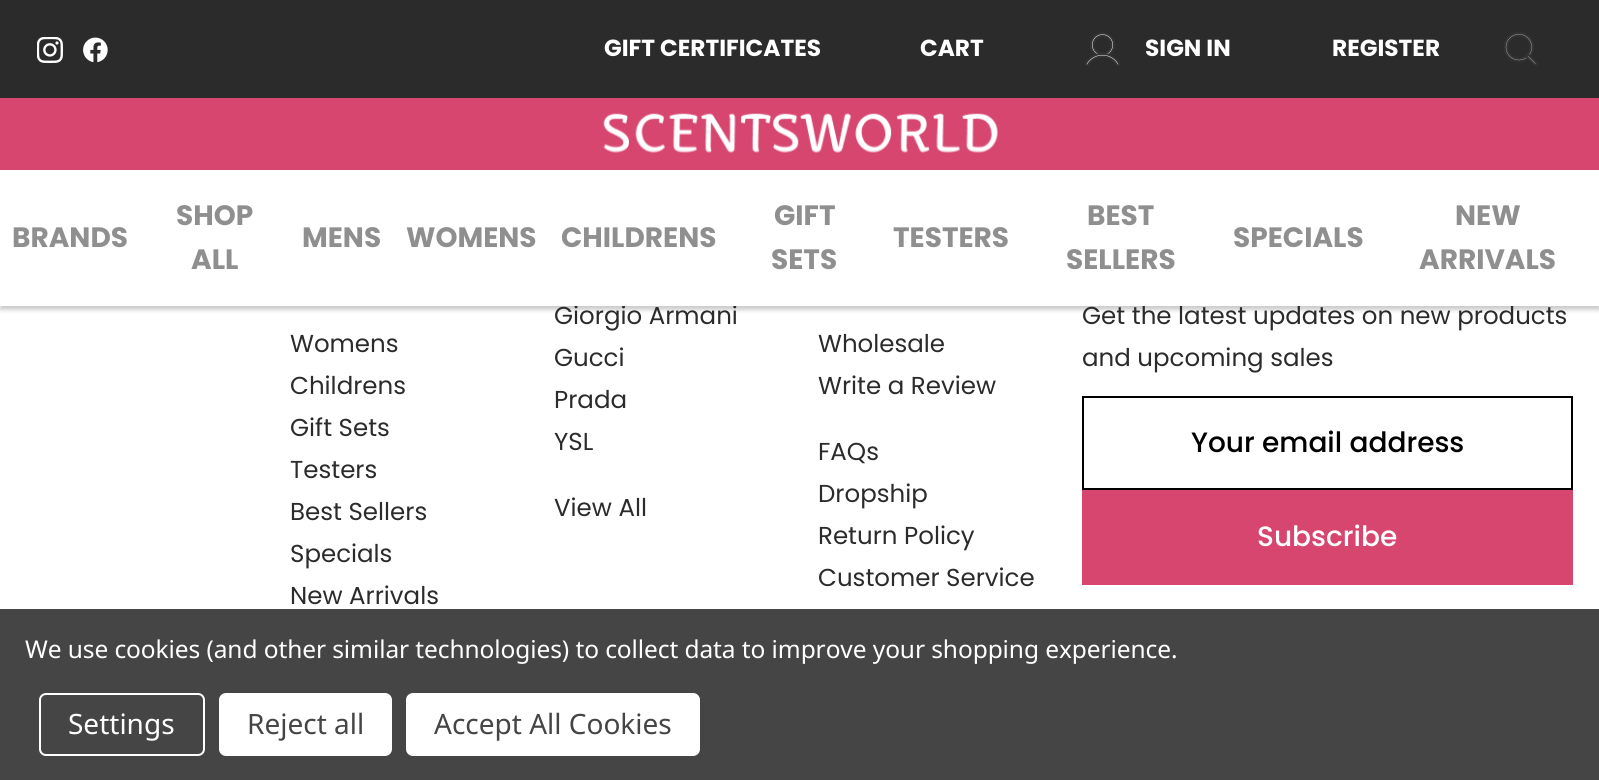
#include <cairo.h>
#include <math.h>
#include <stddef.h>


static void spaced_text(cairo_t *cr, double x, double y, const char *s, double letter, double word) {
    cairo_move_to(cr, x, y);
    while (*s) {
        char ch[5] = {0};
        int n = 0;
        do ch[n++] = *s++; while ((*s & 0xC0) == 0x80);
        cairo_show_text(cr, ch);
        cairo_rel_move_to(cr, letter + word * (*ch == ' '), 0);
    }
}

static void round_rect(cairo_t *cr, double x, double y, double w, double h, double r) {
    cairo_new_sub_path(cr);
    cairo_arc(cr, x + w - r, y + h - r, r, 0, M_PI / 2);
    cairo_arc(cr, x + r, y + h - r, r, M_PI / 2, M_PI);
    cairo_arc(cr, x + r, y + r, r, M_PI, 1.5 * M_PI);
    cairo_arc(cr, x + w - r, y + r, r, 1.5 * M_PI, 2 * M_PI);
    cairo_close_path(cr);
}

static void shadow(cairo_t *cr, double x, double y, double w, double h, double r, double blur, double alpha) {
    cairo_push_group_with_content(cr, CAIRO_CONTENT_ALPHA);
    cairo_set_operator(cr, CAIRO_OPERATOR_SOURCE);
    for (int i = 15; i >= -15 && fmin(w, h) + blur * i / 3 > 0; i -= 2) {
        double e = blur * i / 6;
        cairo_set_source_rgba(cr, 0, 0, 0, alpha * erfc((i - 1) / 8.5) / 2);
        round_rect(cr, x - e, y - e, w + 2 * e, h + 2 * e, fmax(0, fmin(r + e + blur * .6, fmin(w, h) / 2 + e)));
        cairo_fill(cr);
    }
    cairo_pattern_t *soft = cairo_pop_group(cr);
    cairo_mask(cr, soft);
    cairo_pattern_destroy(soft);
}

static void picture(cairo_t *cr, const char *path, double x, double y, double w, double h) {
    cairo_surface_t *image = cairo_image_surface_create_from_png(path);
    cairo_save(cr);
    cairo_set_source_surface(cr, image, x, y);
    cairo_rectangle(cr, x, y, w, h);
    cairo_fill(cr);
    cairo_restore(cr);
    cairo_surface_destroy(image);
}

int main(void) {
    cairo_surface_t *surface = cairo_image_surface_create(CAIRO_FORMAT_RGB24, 1599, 780);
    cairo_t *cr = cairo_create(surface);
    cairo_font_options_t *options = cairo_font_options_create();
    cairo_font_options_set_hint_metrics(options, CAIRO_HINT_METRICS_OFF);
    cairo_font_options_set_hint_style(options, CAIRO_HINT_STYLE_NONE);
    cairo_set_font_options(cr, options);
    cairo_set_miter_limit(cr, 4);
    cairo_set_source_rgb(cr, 1, 1, 1);
    cairo_paint(cr);
    cairo_set_source_rgb(cr, 0.169, 0.169, 0.169);
    cairo_rectangle(cr, 0, 0, 1599, 98);
    cairo_fill(cr);
    picture(cr, "img1.png", 37, 37, 26, 26);
    picture(cr, "img2.png", 83, 37, 25, 26);
    cairo_select_font_face(cr, "Poppins", CAIRO_FONT_SLANT_NORMAL, CAIRO_FONT_WEIGHT_BOLD);
    cairo_set_font_size(cr, 23.25);
    cairo_set_source_rgb(cr, 1, 1, 1);
    cairo_move_to(cr, 604, 56);
    cairo_show_text(cr, "GIFT CERTIFICATES");
    cairo_move_to(cr, 920, 56);
    cairo_show_text(cr, "CART");
    picture(cr, "img3.png", 1085, 32, 35, 34);
    cairo_move_to(cr, 1145, 56);
    cairo_show_text(cr, "SIGN IN");
    cairo_move_to(cr, 1332, 56);
    cairo_show_text(cr, "REGISTER");
    picture(cr, "img4.png", 1504, 32, 34, 34);
    cairo_set_source_rgb(cr, 0.843, 0.275, 0.435);
    cairo_rectangle(cr, 0, 98, 1599, 72);
    cairo_fill(cr);
    picture(cr, "img5.png", 603, 113, 395, 40);
    cairo_set_source_rgb(cr, 0, 0, 0);
    shadow(cr, 0, 173, 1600, 137, 0, 2, 0.2);
    cairo_select_font_face(cr, "Poppins", CAIRO_FONT_SLANT_NORMAL, CAIRO_FONT_WEIGHT_NORMAL);
    cairo_set_font_size(cr, 24.5);
    cairo_set_source_rgb(cr, 0.169, 0.169, 0.169);
    cairo_move_to(cr, 554, 324);
    cairo_show_text(cr, "Giorgio Armani");
    cairo_move_to(cr, 1082, 324);
    cairo_show_text(cr, "Get the latest updates on new products");
    cairo_set_source_rgb(cr, 1, 1, 1);
    cairo_rectangle(cr, 0, 170, 1599, 136);
    cairo_fill(cr);
    cairo_select_font_face(cr, "Poppins", CAIRO_FONT_SLANT_NORMAL, CAIRO_FONT_WEIGHT_BOLD);
    cairo_set_font_size(cr, 28);
    cairo_set_source_rgb(cr, 0.561, 0.561, 0.561);
    cairo_move_to(cr, 12, 247);
    cairo_show_text(cr, "BRANDS");
    cairo_move_to(cr, 176, 225);
    cairo_show_text(cr, "SHOP");
    cairo_move_to(cr, 191, 269);
    cairo_show_text(cr, "ALL");
    cairo_move_to(cr, 302, 247);
    cairo_show_text(cr, "MENS");
    cairo_move_to(cr, 406, 247);
    cairo_show_text(cr, "WOMENS");
    cairo_move_to(cr, 561, 247);
    cairo_show_text(cr, "CHILDRENS");
    cairo_move_to(cr, 774, 225);
    cairo_show_text(cr, "GIFT");
    cairo_move_to(cr, 771, 269);
    cairo_show_text(cr, "SETS");
    cairo_move_to(cr, 893, 247);
    cairo_show_text(cr, "TESTERS");
    cairo_move_to(cr, 1087, 225);
    cairo_show_text(cr, "BEST");
    cairo_move_to(cr, 1066, 269);
    cairo_show_text(cr, "SELLERS");
    cairo_move_to(cr, 1233, 247);
    cairo_show_text(cr, "SPECIALS");
    cairo_move_to(cr, 1455, 225);
    cairo_show_text(cr, "NEW");
    cairo_move_to(cr, 1419, 269);
    cairo_show_text(cr, "ARRIVALS");
    cairo_select_font_face(cr, "Poppins", CAIRO_FONT_SLANT_NORMAL, CAIRO_FONT_WEIGHT_NORMAL);
    cairo_set_font_size(cr, 24.5);
    cairo_set_source_rgb(cr, 0.169, 0.169, 0.169);
    cairo_move_to(cr, 290, 352);
    cairo_show_text(cr, "Womens");
    cairo_move_to(cr, 290, 394);
    cairo_show_text(cr, "Childrens");
    cairo_move_to(cr, 290, 436);
    cairo_show_text(cr, "Gift Sets");
    cairo_move_to(cr, 290, 478);
    cairo_show_text(cr, "Testers");
    cairo_move_to(cr, 290, 520);
    cairo_show_text(cr, "Best Sellers");
    cairo_move_to(cr, 290, 562);
    cairo_show_text(cr, "Specials");
    cairo_move_to(cr, 290, 604);
    cairo_show_text(cr, "New Arrivals");
    cairo_move_to(cr, 554, 366);
    cairo_show_text(cr, "Gucci");
    cairo_move_to(cr, 554, 408);
    cairo_show_text(cr, "Prada");
    cairo_move_to(cr, 554, 450);
    cairo_show_text(cr, "YSL");
    cairo_move_to(cr, 554, 516);
    cairo_show_text(cr, "View All");
    cairo_move_to(cr, 818, 352);
    cairo_show_text(cr, "Wholesale");
    cairo_move_to(cr, 818, 394);
    cairo_show_text(cr, "Write a Review");
    cairo_move_to(cr, 818, 460);
    cairo_show_text(cr, "FAQs");
    cairo_move_to(cr, 818, 502);
    cairo_show_text(cr, "Dropship");
    cairo_move_to(cr, 818, 544);
    cairo_show_text(cr, "Return Policy");
    cairo_move_to(cr, 818, 586);
    cairo_show_text(cr, "Customer Service");
    cairo_move_to(cr, 1082, 366);
    cairo_show_text(cr, "and upcoming sales");
    cairo_rectangle(cr, 1083, 397, 489, 92);
    cairo_set_source_rgb(cr, 0, 0, 0);
    cairo_stroke(cr);
    cairo_select_font_face(cr, "Poppins Medium", CAIRO_FONT_SLANT_NORMAL, CAIRO_FONT_WEIGHT_NORMAL);
    cairo_set_font_size(cr, 28);
    cairo_move_to(cr, 1191, 452);
    cairo_show_text(cr, "Your email address");
    cairo_set_source_rgb(cr, 0.843, 0.275, 0.435);
    cairo_rectangle(cr, 1082, 490, 491, 95);
    cairo_fill(cr);
    cairo_set_source_rgb(cr, 1, 1, 1);
    cairo_move_to(cr, 1257, 546);
    cairo_show_text(cr, "Subscribe");
    cairo_set_source_rgb(cr, 0.271, 0.271, 0.271);
    cairo_rectangle(cr, 0, 609, 1599, 171);
    cairo_fill(cr);
    cairo_select_font_face(cr, "Noto Sans", CAIRO_FONT_SLANT_NORMAL, CAIRO_FONT_WEIGHT_NORMAL);
    cairo_set_font_size(cr, 24.5);
    cairo_set_source_rgb(cr, 1, 1, 1);
    spaced_text(cr, 25, 658, "We use cookies (and other similar technologies) to collect data to improve your shopping experience.", -0.09, 0);
    round_rect(cr, 40, 694, 164, 61, 6);
    cairo_stroke(cr);
    cairo_set_font_size(cr, 28);
    cairo_move_to(cr, 68, 734);
    cairo_show_text(cr, "Settings");
    round_rect(cr, 219, 693, 173, 63, 7);
    cairo_fill(cr);
    cairo_set_source_rgb(cr, 0.271, 0.271, 0.271);
    cairo_move_to(cr, 247, 734);
    cairo_show_text(cr, "Reject all");
    cairo_set_source_rgb(cr, 1, 1, 1);
    round_rect(cr, 406, 693, 294, 63, 7);
    cairo_fill(cr);
    cairo_set_source_rgb(cr, 0.271, 0.271, 0.271);
    cairo_move_to(cr, 434, 734);
    cairo_show_text(cr, "Accept All Cookies");
    cairo_surface_write_to_png(surface, "page.png");
    cairo_font_options_destroy(options);
    cairo_destroy(cr);
    cairo_surface_destroy(surface);
    return 0;
}
